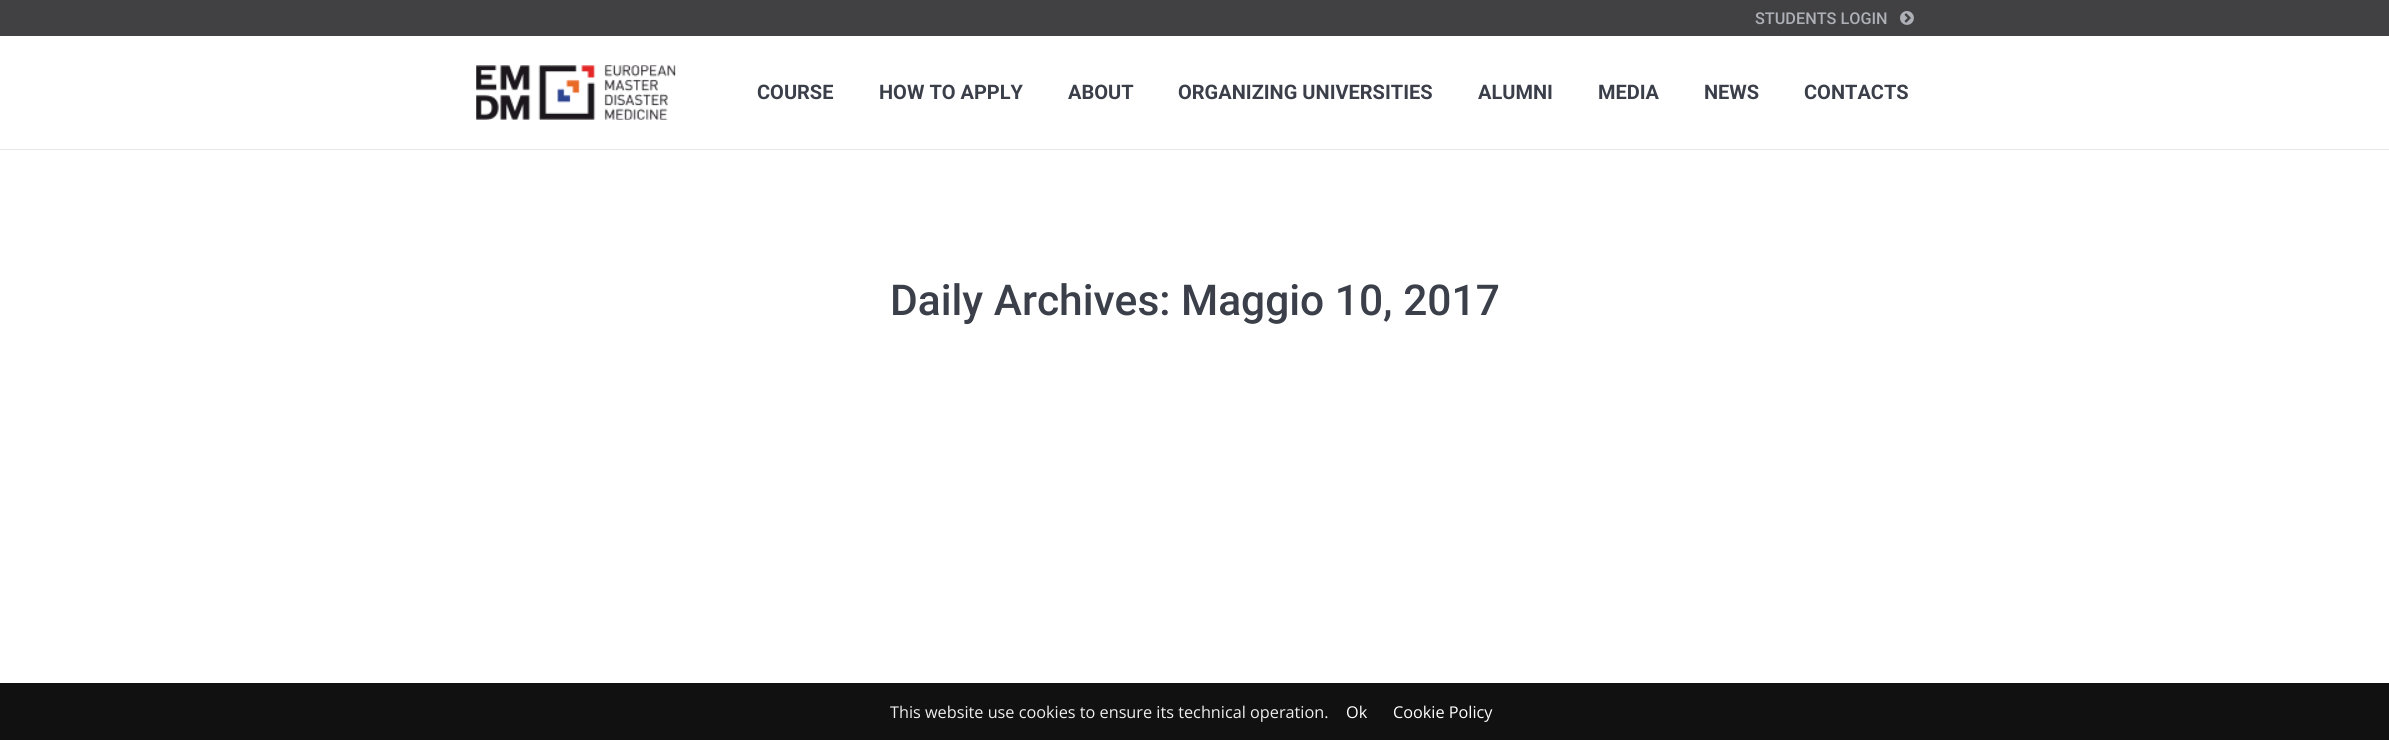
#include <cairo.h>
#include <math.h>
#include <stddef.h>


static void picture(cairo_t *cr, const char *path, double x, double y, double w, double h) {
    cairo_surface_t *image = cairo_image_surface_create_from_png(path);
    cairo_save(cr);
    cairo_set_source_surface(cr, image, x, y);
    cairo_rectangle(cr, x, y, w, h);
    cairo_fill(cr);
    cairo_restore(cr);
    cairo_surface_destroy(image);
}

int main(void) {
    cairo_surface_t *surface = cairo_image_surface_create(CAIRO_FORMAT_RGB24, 2389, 740);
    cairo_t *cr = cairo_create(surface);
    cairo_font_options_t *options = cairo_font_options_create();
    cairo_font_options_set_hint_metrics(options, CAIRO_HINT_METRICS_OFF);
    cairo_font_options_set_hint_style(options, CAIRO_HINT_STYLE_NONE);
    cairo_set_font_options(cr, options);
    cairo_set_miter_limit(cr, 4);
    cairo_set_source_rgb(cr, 1, 1, 1);
    cairo_paint(cr);
    cairo_set_source_rgb(cr, 0.902, 0.906, 0.914);
    cairo_rectangle(cr, 0, 149, 2389, 1);
    cairo_fill(cr);
    cairo_set_source_rgb(cr, 0.255, 0.251, 0.259);
    cairo_rectangle(cr, 0, 0, 2389, 36);
    cairo_fill(cr);
    cairo_select_font_face(cr, "Roboto Medium", CAIRO_FONT_SLANT_NORMAL, CAIRO_FONT_WEIGHT_NORMAL);
    cairo_set_font_size(cr, 16.25);
    cairo_set_source_rgb(cr, 0.678, 0.69, 0.714);
    cairo_move_to(cr, 1755, 24);
    cairo_show_text(cr, "STUDENTS LOGIN");
    picture(cr, "img1.png", 1900, 11, 14, 14);
    picture(cr, "img2.png", 476, 65, 200, 55);
    cairo_select_font_face(cr, "Roboto", CAIRO_FONT_SLANT_NORMAL, CAIRO_FONT_WEIGHT_BOLD);
    cairo_set_font_size(cr, 20);
    cairo_set_source_rgb(cr, 0.231, 0.247, 0.29);
    cairo_move_to(cr, 757, 99);
    cairo_show_text(cr, "COURSE");
    cairo_move_to(cr, 879, 99);
    cairo_show_text(cr, "HOW TO APPLY");
    cairo_move_to(cr, 1068, 99);
    cairo_show_text(cr, "ABOUT");
    cairo_move_to(cr, 1178, 99);
    cairo_show_text(cr, "ORGANIZING UNIVERSITIES");
    cairo_move_to(cr, 1478, 99);
    cairo_show_text(cr, "ALUMNI");
    cairo_move_to(cr, 1598, 99);
    cairo_show_text(cr, "MEDIA");
    cairo_move_to(cr, 1704, 99);
    cairo_show_text(cr, "NEWS");
    cairo_move_to(cr, 1804, 99);
    cairo_show_text(cr, "CONTACTS");
    cairo_select_font_face(cr, "Roboto Medium", CAIRO_FONT_SLANT_NORMAL, CAIRO_FONT_WEIGHT_NORMAL);
    cairo_set_font_size(cr, 42.5);
    cairo_move_to(cr, 890, 315);
    cairo_show_text(cr, "Daily Archives: Maggio 10, 2017");
    cairo_set_source_rgb(cr, 0.067, 0.067, 0.067);
    cairo_rectangle(cr, 0, 683, 2389, 57);
    cairo_fill(cr);
    cairo_select_font_face(cr, "Open Sans", CAIRO_FONT_SLANT_NORMAL, CAIRO_FONT_WEIGHT_NORMAL);
    cairo_set_font_size(cr, 16.25);
    cairo_set_source_rgb(cr, 0.933, 0.933, 0.933);
    cairo_move_to(cr, 890, 718);
    cairo_show_text(cr, "This website use cookies to ensure its technical operation.");
    cairo_set_source_rgb(cr, 1, 1, 1);
    cairo_move_to(cr, 1346, 718);
    cairo_show_text(cr, "Ok");
    cairo_move_to(cr, 1393, 718);
    cairo_show_text(cr, "Cookie Policy");
    cairo_surface_write_to_png(surface, "page.png");
    cairo_font_options_destroy(options);
    cairo_destroy(cr);
    cairo_surface_destroy(surface);
    return 0;
}
